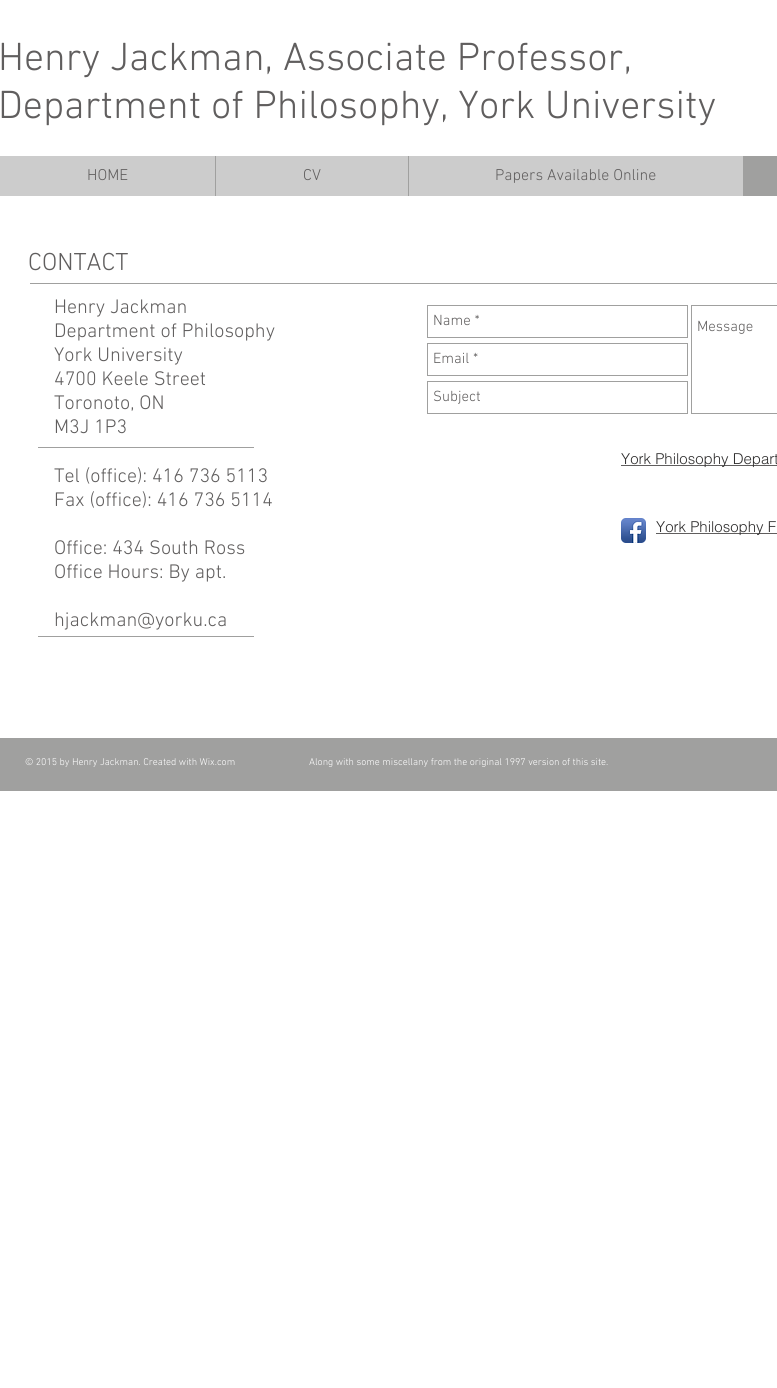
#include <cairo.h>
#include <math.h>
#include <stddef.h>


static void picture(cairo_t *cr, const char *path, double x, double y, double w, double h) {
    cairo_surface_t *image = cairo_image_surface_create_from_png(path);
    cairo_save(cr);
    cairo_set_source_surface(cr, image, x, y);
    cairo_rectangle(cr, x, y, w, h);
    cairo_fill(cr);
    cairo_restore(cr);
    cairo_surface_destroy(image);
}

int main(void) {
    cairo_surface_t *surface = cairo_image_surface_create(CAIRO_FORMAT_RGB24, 777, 1388);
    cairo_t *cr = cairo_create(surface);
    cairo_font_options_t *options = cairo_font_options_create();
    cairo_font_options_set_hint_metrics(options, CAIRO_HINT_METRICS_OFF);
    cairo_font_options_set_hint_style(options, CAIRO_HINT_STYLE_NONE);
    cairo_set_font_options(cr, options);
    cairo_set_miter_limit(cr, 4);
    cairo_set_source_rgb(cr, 1, 1, 1);
    cairo_paint(cr);
    cairo_select_font_face(cr, "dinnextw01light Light", CAIRO_FONT_SLANT_NORMAL, CAIRO_FONT_WEIGHT_NORMAL);
    cairo_set_font_size(cr, 40);
    cairo_set_source_rgb(cr, 0.376, 0.369, 0.369);
    cairo_move_to(cr, -2, 70);
    cairo_show_text(cr, "Henry Jackman, Associate Professor,");
    cairo_move_to(cr, -2, 118);
    cairo_show_text(cr, "Department of Philosophy, York University");
    cairo_set_source_rgb(cr, 0.8, 0.8, 0.8);
    cairo_rectangle(cr, 0, 156, 743, 40);
    cairo_fill(cr);
    cairo_set_font_size(cr, 16);
    cairo_set_source_rgb(cr, 0.376, 0.369, 0.369);
    cairo_move_to(cr, 87, 180);
    cairo_show_text(cr, "HOME");
    cairo_set_source_rgb(cr, 0.627, 0.627, 0.624);
    cairo_rectangle(cr, 215, 156, 1, 40);
    cairo_fill(cr);
    cairo_set_source_rgb(cr, 0.376, 0.369, 0.369);
    cairo_move_to(cr, 303, 180);
    cairo_show_text(cr, "CV");
    cairo_set_source_rgb(cr, 0.627, 0.627, 0.624);
    cairo_rectangle(cr, 408, 156, 1, 40);
    cairo_fill(cr);
    cairo_set_source_rgb(cr, 0.376, 0.369, 0.369);
    cairo_move_to(cr, 495, 180);
    cairo_show_text(cr, "Papers Available Online");
    cairo_set_source_rgb(cr, 0.627, 0.627, 0.624);
    cairo_rectangle(cr, 743, 156, 34, 40);
    cairo_fill(cr);
    cairo_set_font_size(cr, 25);
    cairo_set_source_rgb(cr, 0.376, 0.369, 0.369);
    cairo_move_to(cr, 28, 270);
    cairo_show_text(cr, "CONTACT");
    cairo_set_source_rgb(cr, 0.627, 0.627, 0.624);
    cairo_rectangle(cr, 30, 283, 747, 1);
    cairo_fill(cr);
    cairo_set_font_size(cr, 20);
    cairo_set_source_rgb(cr, 0.376, 0.369, 0.369);
    cairo_move_to(cr, 54, 313);
    cairo_show_text(cr, "Henry Jackman");
    cairo_move_to(cr, 54, 337);
    cairo_show_text(cr, "Department of Philosophy");
    cairo_move_to(cr, 54, 361);
    cairo_show_text(cr, "York University");
    cairo_move_to(cr, 54, 385);
    cairo_show_text(cr, "4700 Keele Street");
    cairo_move_to(cr, 54, 409);
    cairo_show_text(cr, "Toronoto, ON");
    cairo_move_to(cr, 54, 433);
    cairo_show_text(cr, "M3J 1P3");
    cairo_rectangle(cr, 427.5, 305.5, 260, 32);
    cairo_set_source_rgb(cr, 0.627, 0.627, 0.624);
    cairo_set_line_width(cr, 1);
    cairo_stroke(cr);
    cairo_set_font_size(cr, 15);
    cairo_set_source_rgb(cr, 0.376, 0.369, 0.369);
    cairo_move_to(cr, 433, 325);
    cairo_show_text(cr, "Name *");
    cairo_rectangle(cr, 691.5, 305.5, 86, 108);
    cairo_set_source_rgb(cr, 0.627, 0.627, 0.624);
    cairo_stroke(cr);
    cairo_set_source_rgb(cr, 0.376, 0.369, 0.369);
    cairo_move_to(cr, 697, 331);
    cairo_show_text(cr, "Message");
    cairo_rectangle(cr, 427.5, 343.5, 260, 32);
    cairo_set_source_rgb(cr, 0.627, 0.627, 0.624);
    cairo_stroke(cr);
    cairo_set_source_rgb(cr, 0.376, 0.369, 0.369);
    cairo_move_to(cr, 433, 363);
    cairo_show_text(cr, "Email *");
    cairo_rectangle(cr, 427.5, 381.5, 260, 32);
    cairo_set_source_rgb(cr, 0.627, 0.627, 0.624);
    cairo_stroke(cr);
    cairo_set_source_rgb(cr, 0.376, 0.369, 0.369);
    cairo_move_to(cr, 433, 401);
    cairo_show_text(cr, "Subject");
    cairo_set_source_rgb(cr, 0.627, 0.627, 0.624);
    cairo_rectangle(cr, 38, 447, 216, 1);
    cairo_fill(cr);
    cairo_set_source_rgb(cr, 0.376, 0.369, 0.369);
    cairo_rectangle(cr, 621, 465, 156, 1);
    cairo_fill(cr);
    cairo_select_font_face(cr, "helvetica Light", CAIRO_FONT_SLANT_NORMAL, CAIRO_FONT_WEIGHT_NORMAL);
    cairo_set_source_rgb(cr, 0.184, 0.18, 0.18);
    cairo_move_to(cr, 621, 464);
    cairo_show_text(cr, "York Philosophy Depart");
    cairo_select_font_face(cr, "dinnextw01light Light", CAIRO_FONT_SLANT_NORMAL, CAIRO_FONT_WEIGHT_NORMAL);
    cairo_set_font_size(cr, 20);
    cairo_set_source_rgb(cr, 0.376, 0.369, 0.369);
    cairo_move_to(cr, 54, 482);
    cairo_show_text(cr, "Tel (office): 416 736 5113");
    cairo_move_to(cr, 54, 506);
    cairo_show_text(cr, "Fax (office): 416 736 5114");
    cairo_move_to(cr, 54, 554);
    cairo_show_text(cr, "Office: 434 South Ross");
    cairo_move_to(cr, 54, 578);
    cairo_show_text(cr, "Office Hours: By apt.");
    cairo_move_to(cr, 54, 626);
    cairo_show_text(cr, "hjackman@yorku.ca");
    picture(cr, "img1.png", 621, 518, 25, 25);
    cairo_rectangle(cr, 656, 533, 121, 1);
    cairo_fill(cr);
    cairo_select_font_face(cr, "helvetica Light", CAIRO_FONT_SLANT_NORMAL, CAIRO_FONT_WEIGHT_NORMAL);
    cairo_set_font_size(cr, 15);
    cairo_set_source_rgb(cr, 0.184, 0.18, 0.18);
    cairo_move_to(cr, 656, 532);
    cairo_show_text(cr, "York Philosophy F");
    cairo_set_source_rgb(cr, 0.627, 0.627, 0.624);
    cairo_rectangle(cr, 38, 636, 216, 1);
    cairo_fill(cr);
    cairo_rectangle(cr, 0, 738, 777, 53);
    cairo_fill(cr);
    cairo_select_font_face(cr, "dinnextw01light Light", CAIRO_FONT_SLANT_NORMAL, CAIRO_FONT_WEIGHT_NORMAL);
    cairo_set_font_size(cr, 10);
    cairo_set_source_rgb(cr, 1, 1, 1);
    cairo_move_to(cr, 25, 765);
    cairo_show_text(cr, "© 2015 by Henry Jackman. Created with Wix.com                              Along with some miscellany from the original 1997 version of this site.");
    cairo_surface_write_to_png(surface, "page.png");
    cairo_font_options_destroy(options);
    cairo_destroy(cr);
    cairo_surface_destroy(surface);
    return 0;
}
